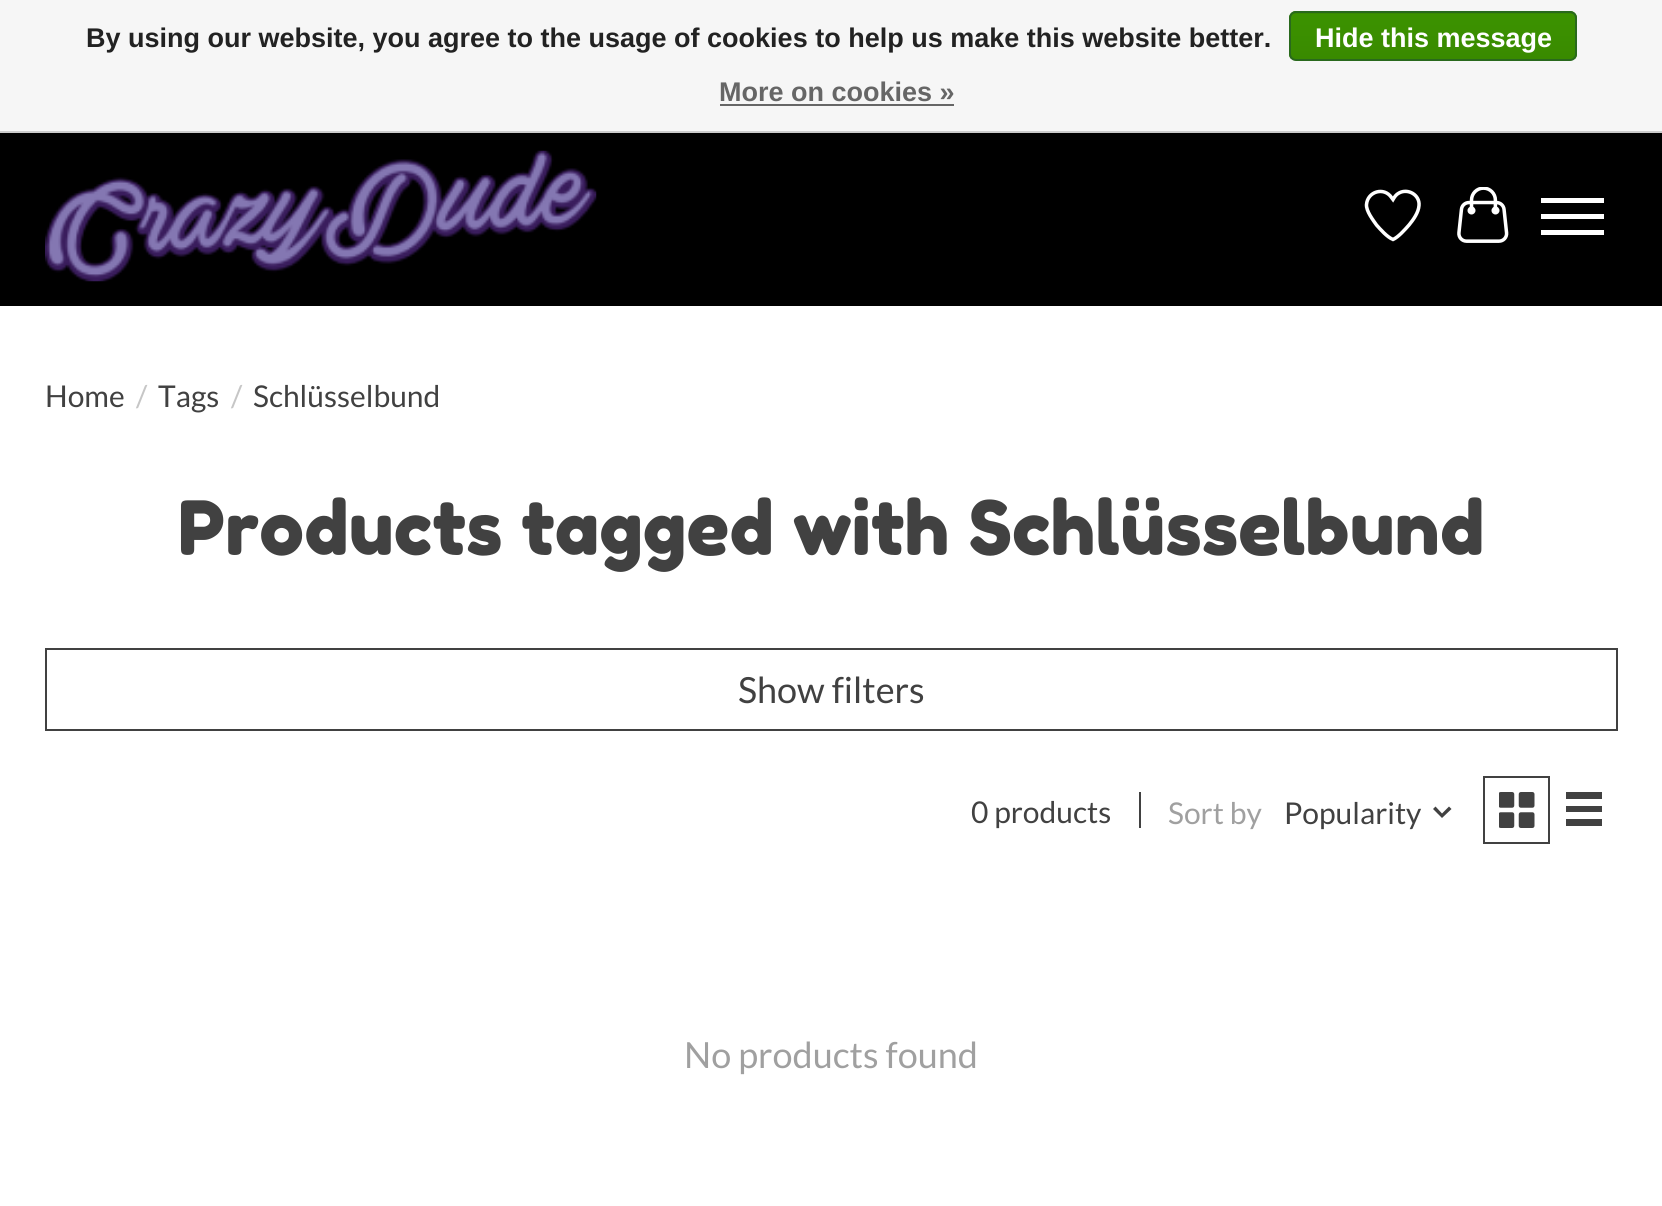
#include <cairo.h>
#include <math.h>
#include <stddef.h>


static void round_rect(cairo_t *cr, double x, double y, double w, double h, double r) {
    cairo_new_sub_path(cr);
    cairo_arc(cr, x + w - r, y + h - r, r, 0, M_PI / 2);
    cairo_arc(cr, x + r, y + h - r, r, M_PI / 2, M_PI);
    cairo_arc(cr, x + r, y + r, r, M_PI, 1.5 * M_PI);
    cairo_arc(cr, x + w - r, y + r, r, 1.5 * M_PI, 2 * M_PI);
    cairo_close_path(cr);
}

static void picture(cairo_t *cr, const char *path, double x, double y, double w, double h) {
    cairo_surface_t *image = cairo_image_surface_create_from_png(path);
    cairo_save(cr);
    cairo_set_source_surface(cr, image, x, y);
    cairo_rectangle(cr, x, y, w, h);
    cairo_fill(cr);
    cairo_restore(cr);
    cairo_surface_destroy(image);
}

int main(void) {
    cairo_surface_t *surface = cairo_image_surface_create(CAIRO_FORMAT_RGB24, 1662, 1206);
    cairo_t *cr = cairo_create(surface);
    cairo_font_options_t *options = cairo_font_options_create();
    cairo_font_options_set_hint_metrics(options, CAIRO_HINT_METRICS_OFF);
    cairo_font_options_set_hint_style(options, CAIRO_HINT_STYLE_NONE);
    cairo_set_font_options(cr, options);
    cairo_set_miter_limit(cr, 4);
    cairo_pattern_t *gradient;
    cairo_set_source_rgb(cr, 1, 1, 1);
    cairo_paint(cr);
    cairo_set_source_rgb(cr, 0.961, 0.961, 0.961);
    cairo_rectangle(cr, 0, 0, 1662, 131);
    cairo_fill(cr);
    cairo_set_source_rgb(cr, 0.8, 0.8, 0.8);
    cairo_rectangle(cr, 0, 131, 1662, 2);
    cairo_fill(cr);
    cairo_select_font_face(cr, "Liberation Sans", CAIRO_FONT_SLANT_NORMAL, CAIRO_FONT_WEIGHT_BOLD);
    cairo_set_font_size(cr, 27);
    cairo_set_source_rgb(cr, 0.133, 0.133, 0.133);
    cairo_move_to(cr, 86, 47);
    cairo_show_text(cr, "By using our website, you agree to the usage of cookies to help us make this website better.");
    cairo_save(cr);
    round_rect(cr, 1289, 11, 288, 50, 7);
    cairo_clip(cr);
    gradient = cairo_pattern_create_linear(1433, -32, 1433, 14);
    cairo_pattern_add_color_stop_rgba(gradient, 0, 0.235, 0.576, 0, 1);
    cairo_pattern_add_color_stop_rgba(gradient, 1, 0.224, 0.541, 0, 1);
    cairo_set_source(cr, gradient);
    cairo_pattern_destroy(gradient);
    cairo_rectangle(cr, 1289, 11, 288, 3);
    cairo_fill(cr);
    gradient = cairo_pattern_create_linear(1433, 13, 1433, 59);
    cairo_pattern_add_color_stop_rgba(gradient, 0, 0.235, 0.576, 0, 1);
    cairo_pattern_add_color_stop_rgba(gradient, 1, 0.224, 0.541, 0, 1);
    cairo_set_source(cr, gradient);
    cairo_pattern_destroy(gradient);
    cairo_rectangle(cr, 1289, 14, 288, 45);
    cairo_fill(cr);
    cairo_restore(cr);
    round_rect(cr, 1290, 12, 286, 48, 6);
    cairo_set_source_rgb(cr, 0.161, 0.412, 0.114);
    cairo_stroke(cr);
    cairo_set_source_rgb(cr, 1, 1, 1);
    cairo_move_to(cr, 1315, 47);
    cairo_show_text(cr, "Hide this message");
    cairo_set_source_rgb(cr, 0.4, 0.4, 0.4);
    cairo_move_to(cr, 719, 101);
    cairo_show_text(cr, "More on cookies »");
    cairo_rectangle(cr, 720, 104, 234, 2);
    cairo_fill(cr);
    cairo_set_source_rgb(cr, 0, 0, 0);
    cairo_rectangle(cr, 0, 133, 1662, 173);
    cairo_fill(cr);
    picture(cr, "img1.png", 45, 150, 552, 132);
    cairo_new_path(cr);
    cairo_move_to(cr, 1391.5, 197.5);
    cairo_line_to(cr, 1393, 199.5);
    cairo_curve_to(cr, 1394.5, 197, 1396, 194.5, 1399, 193);
    cairo_curve_to(cr, 1408, 188, 1420, 195, 1419, 205.5);
    cairo_curve_to(cr, 1418.5, 212.5, 1413.5, 219.5, 1409, 225);
    cairo_curve_to(cr, 1405, 229.5, 1398.5, 237, 1393, 239.5);
    cairo_curve_to(cr, 1387, 237, 1380.5, 229.5, 1376.5, 225);
    cairo_curve_to(cr, 1373, 220, 1366, 211, 1366.5, 204.5);
    cairo_curve_to(cr, 1367.5, 191.5, 1384, 186.5, 1391.5, 197.5);
    cairo_close_path(cr);
    cairo_set_source_rgb(cr, 1, 1, 1);
    cairo_set_line_width(cr, 3.5);
    cairo_stroke(cr);
    picture(cr, "img2.png", 1457, 187, 52, 56);
    cairo_rectangle(cr, 1541, 214, 63, 5);
    cairo_fill(cr);
    cairo_rectangle(cr, 1541, 198, 63, 5);
    cairo_fill(cr);
    cairo_rectangle(cr, 1541, 230, 63, 5);
    cairo_fill(cr);
    cairo_select_font_face(cr, "Lato", CAIRO_FONT_SLANT_NORMAL, CAIRO_FONT_WEIGHT_NORMAL);
    cairo_set_font_size(cr, 30);
    cairo_set_source_rgb(cr, 0.255, 0.255, 0.255);
    cairo_move_to(cr, 45, 407);
    cairo_show_text(cr, "Home");
    cairo_set_source_rgb(cr, 0.776, 0.776, 0.776);
    cairo_move_to(cr, 136, 407);
    cairo_show_text(cr, "/");
    cairo_set_source_rgb(cr, 0.255, 0.255, 0.255);
    cairo_move_to(cr, 158, 407);
    cairo_show_text(cr, "Tags");
    cairo_set_source_rgb(cr, 0.776, 0.776, 0.776);
    cairo_move_to(cr, 231, 407);
    cairo_show_text(cr, "/");
    cairo_set_source_rgb(cr, 0.255, 0.255, 0.255);
    cairo_move_to(cr, 253, 407);
    cairo_show_text(cr, "Schlüsselbund");
    cairo_select_font_face(cr, "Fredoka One", CAIRO_FONT_SLANT_NORMAL, CAIRO_FONT_WEIGHT_NORMAL);
    cairo_set_font_size(cr, 74.6);
    cairo_move_to(cr, 178, 555);
    cairo_show_text(cr, "Products tagged with Schlüsselbund");
    cairo_rectangle(cr, 46, 649, 1571, 81);
    cairo_set_line_width(cr, 2);
    cairo_stroke(cr);
    cairo_select_font_face(cr, "Lato", CAIRO_FONT_SLANT_NORMAL, CAIRO_FONT_WEIGHT_NORMAL);
    cairo_set_font_size(cr, 36);
    cairo_move_to(cr, 738, 703);
    cairo_show_text(cr, "Show filters");
    cairo_set_font_size(cr, 30);
    cairo_move_to(cr, 971, 823);
    cairo_show_text(cr, "0 products");
    cairo_rectangle(cr, 1139, 792, 2, 36);
    cairo_fill(cr);
    cairo_set_source_rgb(cr, 0.627, 0.627, 0.627);
    cairo_move_to(cr, 1168, 824);
    cairo_show_text(cr, "Sort by");
    cairo_set_source_rgb(cr, 0.255, 0.255, 0.255);
    cairo_move_to(cr, 1284, 824);
    cairo_show_text(cr, "Popularity");
    cairo_new_path(cr);
    cairo_move_to(cr, 1442, 818);
    cairo_line_to(cr, 1433, 809);
    cairo_line_to(cr, 1435.5, 806.5);
    cairo_line_to(cr, 1442, 813.5);
    cairo_line_to(cr, 1449, 806.5);
    cairo_line_to(cr, 1451.5, 809);
    cairo_close_path(cr);
    cairo_fill(cr);
    cairo_rectangle(cr, 1484, 777, 65, 66);
    cairo_stroke(cr);
    picture(cr, "img3.png", 1499, 792, 36, 36);
    cairo_rectangle(cr, 1566, 792, 36, 7);
    cairo_fill(cr);
    cairo_rectangle(cr, 1566, 806, 36, 6);
    cairo_fill(cr);
    cairo_rectangle(cr, 1566, 819, 36, 7);
    cairo_fill(cr);
    cairo_set_font_size(cr, 36);
    cairo_set_source_rgb(cr, 0.627, 0.627, 0.627);
    cairo_move_to(cr, 684, 1068);
    cairo_show_text(cr, "No products found");
    cairo_surface_write_to_png(surface, "page.png");
    cairo_font_options_destroy(options);
    cairo_destroy(cr);
    cairo_surface_destroy(surface);
    return 0;
}
